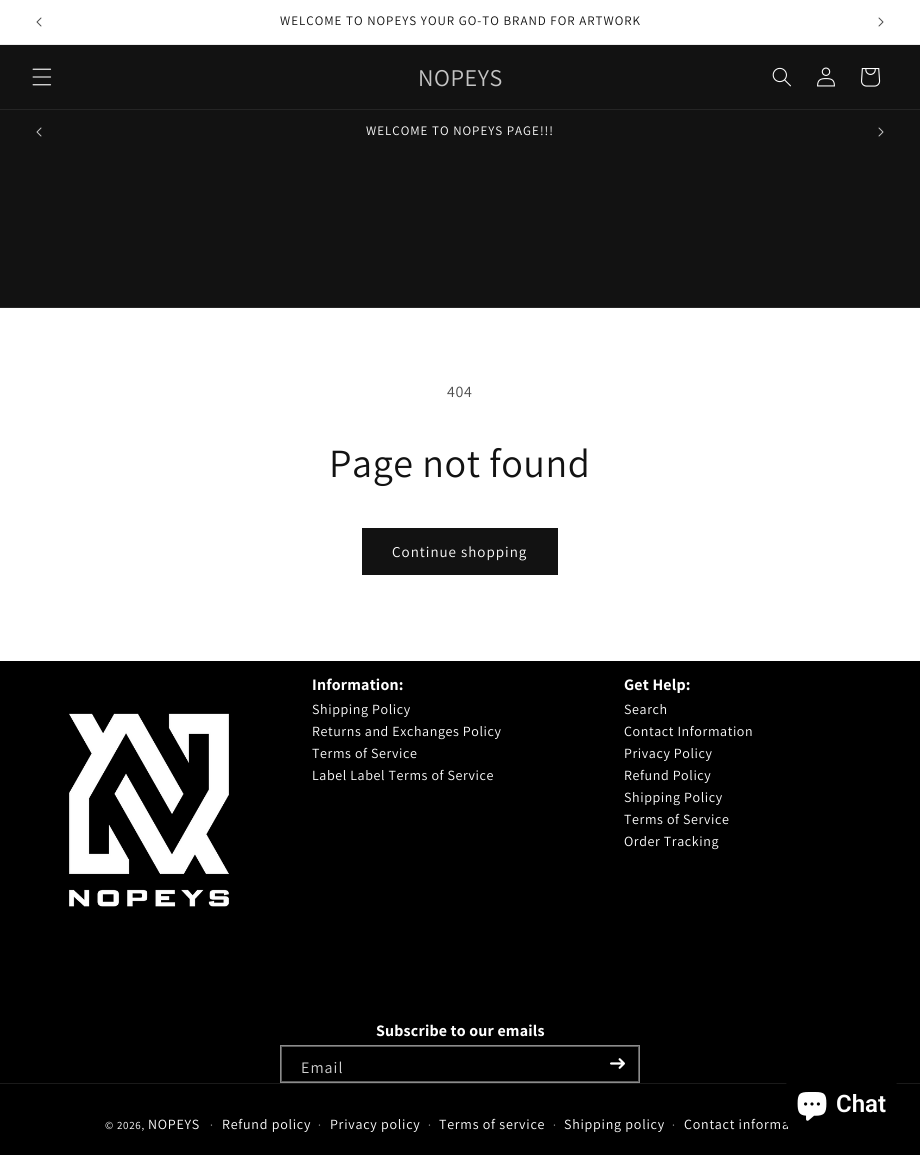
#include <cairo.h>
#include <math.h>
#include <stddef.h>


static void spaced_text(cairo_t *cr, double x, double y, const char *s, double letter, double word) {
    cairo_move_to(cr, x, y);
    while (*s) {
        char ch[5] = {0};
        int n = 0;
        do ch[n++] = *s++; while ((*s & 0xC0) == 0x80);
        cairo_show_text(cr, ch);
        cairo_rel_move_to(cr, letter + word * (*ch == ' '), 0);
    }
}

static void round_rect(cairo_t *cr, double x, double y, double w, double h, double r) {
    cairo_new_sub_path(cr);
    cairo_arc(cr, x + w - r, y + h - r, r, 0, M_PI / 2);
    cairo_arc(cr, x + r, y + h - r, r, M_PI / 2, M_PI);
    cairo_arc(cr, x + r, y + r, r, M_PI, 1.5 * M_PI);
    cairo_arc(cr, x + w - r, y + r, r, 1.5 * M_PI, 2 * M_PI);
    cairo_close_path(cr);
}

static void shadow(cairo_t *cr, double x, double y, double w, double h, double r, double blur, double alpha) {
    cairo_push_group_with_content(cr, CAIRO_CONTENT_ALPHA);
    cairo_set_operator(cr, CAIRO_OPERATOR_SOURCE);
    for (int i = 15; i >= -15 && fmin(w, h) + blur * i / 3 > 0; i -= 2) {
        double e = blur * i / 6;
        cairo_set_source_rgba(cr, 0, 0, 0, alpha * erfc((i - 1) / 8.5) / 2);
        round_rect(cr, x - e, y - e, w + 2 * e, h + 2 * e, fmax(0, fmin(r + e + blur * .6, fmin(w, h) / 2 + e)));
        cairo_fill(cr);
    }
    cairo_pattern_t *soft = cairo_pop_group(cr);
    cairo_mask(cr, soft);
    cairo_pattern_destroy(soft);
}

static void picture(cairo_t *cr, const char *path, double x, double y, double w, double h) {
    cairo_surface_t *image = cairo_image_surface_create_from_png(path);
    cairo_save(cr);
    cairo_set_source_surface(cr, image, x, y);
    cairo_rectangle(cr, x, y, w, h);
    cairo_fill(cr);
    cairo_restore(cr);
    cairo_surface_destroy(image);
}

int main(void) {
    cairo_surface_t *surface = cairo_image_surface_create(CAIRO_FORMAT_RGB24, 920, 1155);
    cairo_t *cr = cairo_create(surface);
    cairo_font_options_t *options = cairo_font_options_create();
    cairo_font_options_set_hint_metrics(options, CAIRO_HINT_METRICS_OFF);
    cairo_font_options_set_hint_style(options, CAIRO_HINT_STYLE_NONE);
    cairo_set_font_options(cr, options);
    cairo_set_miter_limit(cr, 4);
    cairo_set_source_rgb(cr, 1, 1, 1);
    cairo_paint(cr);
    cairo_set_source_rgb(cr, 0.925, 0.925, 0.925);
    cairo_rectangle(cr, 0, 44, 920, 1);
    cairo_fill(cr);
    picture(cr, "img1.png", 36, 17, 6, 10);
    cairo_select_font_face(cr, "Assistant", CAIRO_FONT_SLANT_NORMAL, CAIRO_FONT_WEIGHT_NORMAL);
    cairo_set_font_size(cr, 13);
    cairo_set_source_rgb(cr, 0.071, 0.071, 0.071);
    spaced_text(cr, 280, 25, "WELCOME TO NOPEYS YOUR GO-TO BRAND FOR ARTWORK", 1, 0);
    picture(cr, "img2.png", 878, 17, 6, 10);
    cairo_rectangle(cr, 0, 45, 920, 64);
    cairo_fill(cr);
    cairo_set_source_rgb(cr, 0.145, 0.145, 0.145);
    cairo_rectangle(cr, 0, 109, 920, 1);
    cairo_fill(cr);
    picture(cr, "img3.png", 32, 68, 20, 18);
    cairo_set_font_size(cr, 24);
    cairo_set_source_rgb(cr, 0.769, 0.769, 0.769);
    spaced_text(cr, 418, 86, "NOPEYS", 0.6, 0);
    picture(cr, "img4.png", 772, 67, 19, 20);
    picture(cr, "img5.png", 817, 67, 18, 20);
    picture(cr, "img6.png", 861, 68, 20, 19);
    cairo_set_source_rgb(cr, 0.071, 0.071, 0.071);
    cairo_rectangle(cr, 0, 110, 920, 197);
    cairo_fill(cr);
    cairo_set_source_rgb(cr, 0.145, 0.145, 0.145);
    cairo_rectangle(cr, 0, 307, 920, 1);
    cairo_fill(cr);
    picture(cr, "img7.png", 36, 127, 6, 10);
    cairo_set_font_size(cr, 13);
    cairo_set_source_rgb(cr, 1, 1, 1);
    spaced_text(cr, 366, 135, "WELCOME TO NOPEYS PAGE!!!", 1, 0);
    picture(cr, "img8.png", 878, 127, 6, 10);
    cairo_set_font_size(cr, 16);
    cairo_set_source_rgb(cr, 0.302, 0.302, 0.302);
    spaced_text(cr, 447, 397, "404", 0.6, 0);
    cairo_set_font_size(cr, 40);
    cairo_set_source_rgb(cr, 0.071, 0.071, 0.071);
    spaced_text(cr, 329, 477, "Page not found", 0.6, 0);
    cairo_rectangle(cr, 362, 528, 196, 47);
    cairo_fill(cr);
    cairo_set_font_size(cr, 15);
    cairo_set_source_rgb(cr, 1, 1, 1);
    spaced_text(cr, 392, 557, "Continue shopping", 1, 0);
    cairo_set_source_rgb(cr, 0, 0, 0);
    cairo_rectangle(cr, 0, 661, 920, 494);
    cairo_fill(cr);
    cairo_set_source_rgb(cr, 0.102, 0.102, 0.102);
    cairo_rectangle(cr, 0, 1083, 920, 1);
    cairo_fill(cr);
    picture(cr, "img9.png", 69, 713, 160, 194);
    cairo_select_font_face(cr, "Assistant", CAIRO_FONT_SLANT_NORMAL, CAIRO_FONT_WEIGHT_BOLD);
    cairo_set_font_size(cr, 16);
    cairo_set_source_rgb(cr, 1, 1, 1);
    spaced_text(cr, 312, 690, "Information:", 0.2, 0);
    cairo_select_font_face(cr, "Assistant", CAIRO_FONT_SLANT_NORMAL, CAIRO_FONT_WEIGHT_NORMAL);
    cairo_set_font_size(cr, 14);
    spaced_text(cr, 312, 714, "Shipping Policy", 0.6, 0);
    spaced_text(cr, 312, 736, "Returns and Exchanges Policy", 0.6, 0);
    spaced_text(cr, 312, 758, "Terms of Service", 0.6, 0);
    spaced_text(cr, 312, 780, "Label Label Terms of Service", 0.6, 0);
    cairo_select_font_face(cr, "Assistant", CAIRO_FONT_SLANT_NORMAL, CAIRO_FONT_WEIGHT_BOLD);
    cairo_set_font_size(cr, 16);
    spaced_text(cr, 624, 690, "Get Help:", 0.2, 0);
    cairo_select_font_face(cr, "Assistant", CAIRO_FONT_SLANT_NORMAL, CAIRO_FONT_WEIGHT_NORMAL);
    cairo_set_font_size(cr, 14);
    spaced_text(cr, 624, 714, "Search", 0.6, 0);
    spaced_text(cr, 624, 736, "Contact Information", 0.6, 0);
    spaced_text(cr, 624, 758, "Privacy Policy", 0.6, 0);
    spaced_text(cr, 624, 780, "Refund Policy", 0.6, 0);
    spaced_text(cr, 624, 802, "Shipping Policy", 0.6, 0);
    spaced_text(cr, 624, 824, "Terms of Service", 0.6, 0);
    spaced_text(cr, 624, 846, "Order Tracking", 0.6, 0);
    cairo_select_font_face(cr, "Assistant", CAIRO_FONT_SLANT_NORMAL, CAIRO_FONT_WEIGHT_BOLD);
    cairo_set_font_size(cr, 16);
    spaced_text(cr, 376, 1036, "Subscribe to our emails", 0.2, 0);
    cairo_rectangle(cr, 281.5, 1046.5, 357, 35);
    cairo_set_source_rgb(cr, 0.349, 0.349, 0.349);
    cairo_set_line_width(cr, 1);
    cairo_stroke(cr);
    cairo_rectangle(cr, 280.5, 1045.5, 359, 37);
    cairo_set_source_rgb(cr, 0.549, 0.549, 0.549);
    cairo_stroke(cr);
    cairo_select_font_face(cr, "Assistant", CAIRO_FONT_SLANT_NORMAL, CAIRO_FONT_WEIGHT_NORMAL);
    cairo_set_source_rgb(cr, 0.82, 0.82, 0.82);
    spaced_text(cr, 301, 1073, "Email", 1, 0);
    picture(cr, "img10.png", 610, 1058, 15, 11);
    cairo_set_font_size(cr, 11);
    cairo_set_source_rgb(cr, 1, 1, 1);
    spaced_text(cr, 105, 1129, "© 2026,", 0.75, 0);
    cairo_set_font_size(cr, 14);
    spaced_text(cr, 148, 1129, "NOPEYS", 0.75, 0);
    cairo_set_font_size(cr, 12);
    cairo_set_source_rgb(cr, 0.604, 0.604, 0.604);
    spaced_text(cr, 210, 1129, "·", 0.75, 0);
    cairo_set_font_size(cr, 14);
    cairo_set_source_rgb(cr, 1, 1, 1);
    spaced_text(cr, 222, 1129, "Refund policy", 0.75, 0);
    cairo_set_font_size(cr, 12);
    cairo_set_source_rgb(cr, 0.604, 0.604, 0.604);
    spaced_text(cr, 318, 1129, "·", 0.75, 0);
    cairo_set_font_size(cr, 14);
    cairo_set_source_rgb(cr, 1, 1, 1);
    spaced_text(cr, 330, 1129, "Privacy policy", 0.75, 0);
    cairo_set_font_size(cr, 12);
    cairo_set_source_rgb(cr, 0.604, 0.604, 0.604);
    spaced_text(cr, 428, 1129, "·", 0.75, 0);
    cairo_set_font_size(cr, 14);
    cairo_set_source_rgb(cr, 1, 1, 1);
    spaced_text(cr, 439, 1129, "Terms of service", 0.75, 0);
    cairo_set_font_size(cr, 12);
    cairo_set_source_rgb(cr, 0.604, 0.604, 0.604);
    spaced_text(cr, 553, 1129, "·", 0.75, 0);
    cairo_set_font_size(cr, 14);
    cairo_set_source_rgb(cr, 1, 1, 1);
    spaced_text(cr, 564, 1129, "Shipping policy", 0.75, 0);
    cairo_set_font_size(cr, 12);
    cairo_set_source_rgb(cr, 0.604, 0.604, 0.604);
    spaced_text(cr, 672, 1129, "·", 0.75, 0);
    cairo_set_font_size(cr, 14);
    cairo_set_source_rgb(cr, 1, 1, 1);
    spaced_text(cr, 684, 1129, "Contact informa", 0.75, 0);
    cairo_set_source_rgb(cr, 0, 0, 0);
    shadow(cr, 785, 1074, 113, 60, 16, 2.5, 0.15);
    cairo_set_source_rgb(cr, 0, 0, 0);
    round_rect(cr, 785, 1074, 113, 60, 16);
    cairo_fill(cr);
    picture(cr, "img11.png", 797, 1092, 30, 29);
    cairo_select_font_face(cr, "Roboto SemiBold", CAIRO_FONT_SLANT_NORMAL, CAIRO_FONT_WEIGHT_NORMAL);
    cairo_set_font_size(cr, 24);
    cairo_set_source_rgb(cr, 1, 1, 1);
    cairo_move_to(cr, 836, 1112);
    cairo_show_text(cr, "Chat");
    cairo_surface_write_to_png(surface, "page.png");
    cairo_font_options_destroy(options);
    cairo_destroy(cr);
    cairo_surface_destroy(surface);
    return 0;
}
